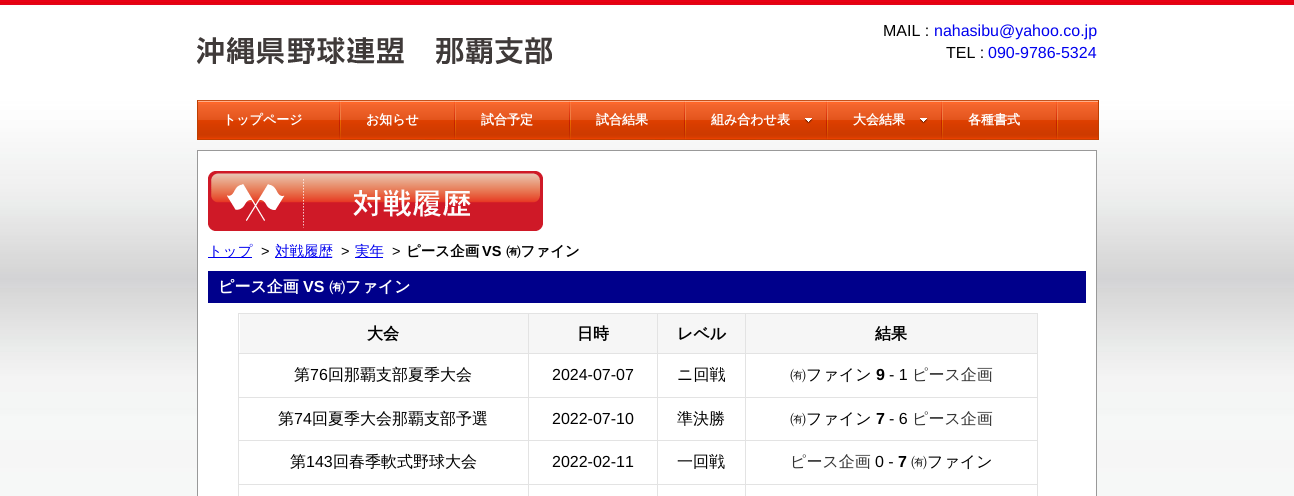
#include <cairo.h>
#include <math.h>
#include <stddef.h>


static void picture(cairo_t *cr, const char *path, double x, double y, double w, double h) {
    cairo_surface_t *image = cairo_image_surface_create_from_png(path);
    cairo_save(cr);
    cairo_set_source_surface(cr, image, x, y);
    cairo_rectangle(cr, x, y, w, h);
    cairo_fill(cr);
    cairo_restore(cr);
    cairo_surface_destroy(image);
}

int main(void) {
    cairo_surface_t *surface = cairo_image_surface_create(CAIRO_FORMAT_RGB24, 1294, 496);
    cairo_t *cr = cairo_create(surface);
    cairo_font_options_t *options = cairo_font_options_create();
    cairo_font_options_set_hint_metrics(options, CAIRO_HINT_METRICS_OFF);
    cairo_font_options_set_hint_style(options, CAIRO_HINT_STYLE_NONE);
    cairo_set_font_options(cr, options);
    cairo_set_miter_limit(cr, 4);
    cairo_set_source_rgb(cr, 1, 1, 1);
    cairo_paint(cr);
    picture(cr, "img1.png", 0, 0, 1294, 496);
    picture(cr, "img2.png", 197, 37, 355, 27);
    cairo_select_font_face(cr, "Liberation Sans", CAIRO_FONT_SLANT_NORMAL, CAIRO_FONT_WEIGHT_NORMAL);
    cairo_set_font_size(cr, 16);
    cairo_set_source_rgb(cr, 0, 0, 0);
    cairo_move_to(cr, 883, 36);
    cairo_show_text(cr, "MAIL :");
    cairo_set_source_rgb(cr, 0, 0, 0.933);
    cairo_move_to(cr, 934, 36);
    cairo_show_text(cr, "nahasibu@yahoo.co.jp");
    cairo_set_source_rgb(cr, 0, 0, 0);
    cairo_move_to(cr, 946, 58);
    cairo_show_text(cr, "TEL :");
    cairo_set_source_rgb(cr, 0, 0, 0.933);
    cairo_move_to(cr, 988, 58);
    cairo_show_text(cr, "090-9786-5324");
    picture(cr, "img3.png", 571, 100, 527, 40);
    cairo_set_source_rgb(cr, 0.741, 0.243, 0);
    cairo_rectangle(cr, 1098, 100, 1, 40);
    cairo_fill(cr);
    cairo_rectangle(cr, 197, 100, 1, 40);
    cairo_fill(cr);
    picture(cr, "img4.png", 198, 100, 143, 40);
    cairo_select_font_face(cr, "WenQuanYi Zen Hei", CAIRO_FONT_SLANT_NORMAL, CAIRO_FONT_WEIGHT_BOLD);
    cairo_set_font_size(cr, 13);
    cairo_set_source_rgb(cr, 1, 1, 1);
    cairo_move_to(cr, 223, 124);
    cairo_show_text(cr, "トップページ");
    picture(cr, "img5.png", 341, 100, 115, 40);
    cairo_move_to(cr, 366, 124);
    cairo_show_text(cr, "お知らせ");
    picture(cr, "img6.png", 456, 100, 115, 40);
    cairo_move_to(cr, 481, 124);
    cairo_show_text(cr, "試合予定");
    picture(cr, "img7.png", 615, 100, 71, 40);
    cairo_move_to(cr, 596, 124);
    cairo_show_text(cr, "試合結果");
    picture(cr, "img8.png", 750, 100, 78, 40);
    cairo_move_to(cr, 711, 124);
    cairo_show_text(cr, "組み合わせ表");
    picture(cr, "img9.png", 805, 118, 8, 6);
    picture(cr, "img6.png", 828, 100, 115, 40);
    cairo_move_to(cr, 853, 124);
    cairo_show_text(cr, "大会結果");
    picture(cr, "img9.png", 920, 118, 8, 6);
    picture(cr, "img6.png", 943, 100, 115, 40);
    cairo_move_to(cr, 968, 124);
    cairo_show_text(cr, "各種書式");
    cairo_rectangle(cr, 197.5, 150.5, 899, 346);
    cairo_fill_preserve(cr);
    cairo_set_source_rgb(cr, 0.6, 0.6, 0.6);
    cairo_set_line_width(cr, 1);
    cairo_stroke(cr);
    picture(cr, "img10.png", 208, 171, 335, 60);
    cairo_set_source_rgb(cr, 0, 0, 0.933);
    cairo_rectangle(cr, 208, 257, 44, 1);
    cairo_fill(cr);
    cairo_select_font_face(cr, "WenQuanYi Zen Hei Medium", CAIRO_FONT_SLANT_NORMAL, CAIRO_FONT_WEIGHT_NORMAL);
    cairo_set_font_size(cr, 14.5);
    cairo_move_to(cr, 208, 256);
    cairo_show_text(cr, "トップ");
    cairo_select_font_face(cr, "Liberation Sans", CAIRO_FONT_SLANT_NORMAL, CAIRO_FONT_WEIGHT_NORMAL);
    cairo_set_source_rgb(cr, 0, 0, 0);
    cairo_move_to(cr, 261, 256);
    cairo_show_text(cr, ">");
    cairo_set_source_rgb(cr, 0, 0, 0.933);
    cairo_rectangle(cr, 275, 257, 57, 1);
    cairo_fill(cr);
    cairo_select_font_face(cr, "WenQuanYi Zen Hei Medium", CAIRO_FONT_SLANT_NORMAL, CAIRO_FONT_WEIGHT_NORMAL);
    cairo_move_to(cr, 275, 256);
    cairo_show_text(cr, "対戦履歴");
    cairo_select_font_face(cr, "Liberation Sans", CAIRO_FONT_SLANT_NORMAL, CAIRO_FONT_WEIGHT_NORMAL);
    cairo_set_source_rgb(cr, 0, 0, 0);
    cairo_move_to(cr, 341, 256);
    cairo_show_text(cr, ">");
    cairo_set_source_rgb(cr, 0, 0, 0.933);
    cairo_rectangle(cr, 355, 257, 28, 1);
    cairo_fill(cr);
    cairo_select_font_face(cr, "WenQuanYi Zen Hei Medium", CAIRO_FONT_SLANT_NORMAL, CAIRO_FONT_WEIGHT_NORMAL);
    cairo_move_to(cr, 355, 256);
    cairo_show_text(cr, "実年");
    cairo_select_font_face(cr, "Liberation Sans", CAIRO_FONT_SLANT_NORMAL, CAIRO_FONT_WEIGHT_NORMAL);
    cairo_set_source_rgb(cr, 0, 0, 0);
    cairo_move_to(cr, 392, 256);
    cairo_show_text(cr, ">");
    cairo_select_font_face(cr, "WenQuanYi Zen Hei", CAIRO_FONT_SLANT_NORMAL, CAIRO_FONT_WEIGHT_BOLD);
    cairo_move_to(cr, 406, 256);
    cairo_show_text(cr, "ピース企画");
    cairo_select_font_face(cr, "Liberation Sans", CAIRO_FONT_SLANT_NORMAL, CAIRO_FONT_WEIGHT_BOLD);
    cairo_move_to(cr, 482, 256);
    cairo_show_text(cr, "VS");
    cairo_select_font_face(cr, "WenQuanYi Zen Hei", CAIRO_FONT_SLANT_NORMAL, CAIRO_FONT_WEIGHT_BOLD);
    cairo_move_to(cr, 506, 256);
    cairo_show_text(cr, "㈲ファイン");
    cairo_set_source_rgb(cr, 0, 0, 0.545);
    cairo_rectangle(cr, 208, 271, 878, 32);
    cairo_fill(cr);
    cairo_set_font_size(cr, 16);
    cairo_set_source_rgb(cr, 1, 1, 1);
    cairo_move_to(cr, 218, 292);
    cairo_show_text(cr, "ピース企画");
    cairo_select_font_face(cr, "Liberation Sans", CAIRO_FONT_SLANT_NORMAL, CAIRO_FONT_WEIGHT_BOLD);
    cairo_move_to(cr, 303, 292);
    cairo_show_text(cr, "VS");
    cairo_select_font_face(cr, "WenQuanYi Zen Hei", CAIRO_FONT_SLANT_NORMAL, CAIRO_FONT_WEIGHT_BOLD);
    cairo_move_to(cr, 329, 292);
    cairo_show_text(cr, "㈲ファイン");
    cairo_set_source_rgb(cr, 0.89, 0.89, 0.89);
    cairo_rectangle(cr, 238, 313, 800, 1);
    cairo_fill(cr);
    cairo_rectangle(cr, 1037, 313, 1, 183);
    cairo_fill(cr);
    cairo_rectangle(cr, 238, 313, 1, 183);
    cairo_fill(cr);
    cairo_set_source_rgb(cr, 0.961, 0.961, 0.961);
    cairo_rectangle(cr, 240, 314, 288, 39);
    cairo_fill(cr);
    cairo_set_source_rgb(cr, 0.89, 0.89, 0.89);
    cairo_rectangle(cr, 745, 484, 1, 12);
    cairo_fill(cr);
    cairo_rectangle(cr, 745, 484, 293, 1);
    cairo_fill(cr);
    cairo_rectangle(cr, 745, 440, 1, 45);
    cairo_fill(cr);
    cairo_rectangle(cr, 745, 440, 293, 1);
    cairo_fill(cr);
    cairo_rectangle(cr, 745, 397, 1, 44);
    cairo_fill(cr);
    cairo_rectangle(cr, 745, 397, 293, 1);
    cairo_fill(cr);
    cairo_rectangle(cr, 745, 353, 1, 45);
    cairo_fill(cr);
    cairo_rectangle(cr, 745, 353, 293, 1);
    cairo_fill(cr);
    cairo_rectangle(cr, 745, 313, 1, 41);
    cairo_fill(cr);
    cairo_rectangle(cr, 657, 484, 1, 12);
    cairo_fill(cr);
    cairo_rectangle(cr, 657, 484, 89, 1);
    cairo_fill(cr);
    cairo_rectangle(cr, 657, 440, 1, 45);
    cairo_fill(cr);
    cairo_rectangle(cr, 657, 440, 89, 1);
    cairo_fill(cr);
    cairo_rectangle(cr, 657, 397, 1, 44);
    cairo_fill(cr);
    cairo_rectangle(cr, 657, 397, 89, 1);
    cairo_fill(cr);
    cairo_rectangle(cr, 657, 353, 1, 45);
    cairo_fill(cr);
    cairo_rectangle(cr, 657, 353, 89, 1);
    cairo_fill(cr);
    cairo_rectangle(cr, 657, 313, 1, 41);
    cairo_fill(cr);
    cairo_rectangle(cr, 528, 484, 1, 12);
    cairo_fill(cr);
    cairo_rectangle(cr, 528, 484, 130, 1);
    cairo_fill(cr);
    cairo_rectangle(cr, 528, 440, 1, 45);
    cairo_fill(cr);
    cairo_rectangle(cr, 528, 440, 130, 1);
    cairo_fill(cr);
    cairo_rectangle(cr, 528, 397, 1, 44);
    cairo_fill(cr);
    cairo_rectangle(cr, 528, 397, 130, 1);
    cairo_fill(cr);
    cairo_rectangle(cr, 528, 353, 1, 45);
    cairo_fill(cr);
    cairo_rectangle(cr, 528, 353, 130, 1);
    cairo_fill(cr);
    cairo_rectangle(cr, 528, 313, 1, 41);
    cairo_fill(cr);
    cairo_rectangle(cr, 238, 353, 291, 1);
    cairo_fill(cr);
    cairo_set_source_rgb(cr, 0, 0, 0);
    cairo_move_to(cr, 367, 339);
    cairo_show_text(cr, "大会");
    cairo_set_source_rgb(cr, 0.961, 0.961, 0.961);
    cairo_rectangle(cr, 529, 314, 128, 39);
    cairo_fill(cr);
    cairo_set_source_rgb(cr, 0, 0, 0);
    cairo_move_to(cr, 577, 339);
    cairo_show_text(cr, "日時");
    cairo_set_source_rgb(cr, 0.961, 0.961, 0.961);
    cairo_rectangle(cr, 658, 314, 87, 39);
    cairo_fill(cr);
    cairo_set_source_rgb(cr, 0, 0, 0);
    cairo_move_to(cr, 677, 339);
    cairo_show_text(cr, "レベル");
    cairo_set_source_rgb(cr, 0.961, 0.961, 0.961);
    cairo_rectangle(cr, 746, 314, 291, 39);
    cairo_fill(cr);
    cairo_set_source_rgb(cr, 0, 0, 0);
    cairo_move_to(cr, 875, 339);
    cairo_show_text(cr, "結果");
    cairo_set_source_rgb(cr, 0.89, 0.89, 0.89);
    cairo_rectangle(cr, 238, 397, 291, 1);
    cairo_fill(cr);
    cairo_select_font_face(cr, "WenQuanYi Zen Hei Medium", CAIRO_FONT_SLANT_NORMAL, CAIRO_FONT_WEIGHT_NORMAL);
    cairo_set_source_rgb(cr, 0, 0, 0);
    cairo_move_to(cr, 294, 380);
    cairo_show_text(cr, "第");
    cairo_select_font_face(cr, "Liberation Sans", CAIRO_FONT_SLANT_NORMAL, CAIRO_FONT_WEIGHT_NORMAL);
    cairo_move_to(cr, 310, 380);
    cairo_show_text(cr, "76");
    cairo_select_font_face(cr, "WenQuanYi Zen Hei Medium", CAIRO_FONT_SLANT_NORMAL, CAIRO_FONT_WEIGHT_NORMAL);
    cairo_move_to(cr, 328, 380);
    cairo_show_text(cr, "回那覇支部夏季大会");
    cairo_select_font_face(cr, "Liberation Sans", CAIRO_FONT_SLANT_NORMAL, CAIRO_FONT_WEIGHT_NORMAL);
    cairo_move_to(cr, 552, 380);
    cairo_show_text(cr, "2024-07-07");
    cairo_select_font_face(cr, "WenQuanYi Zen Hei Medium", CAIRO_FONT_SLANT_NORMAL, CAIRO_FONT_WEIGHT_NORMAL);
    cairo_move_to(cr, 677, 380);
    cairo_show_text(cr, "ニ回戦");
    cairo_move_to(cr, 790, 380);
    cairo_show_text(cr, "㈲ファイン");
    cairo_select_font_face(cr, "Liberation Sans", CAIRO_FONT_SLANT_NORMAL, CAIRO_FONT_WEIGHT_BOLD);
    cairo_move_to(cr, 876, 380);
    cairo_show_text(cr, "9");
    cairo_select_font_face(cr, "Liberation Sans", CAIRO_FONT_SLANT_NORMAL, CAIRO_FONT_WEIGHT_NORMAL);
    cairo_move_to(cr, 889, 380);
    cairo_show_text(cr, "- 1");
    cairo_select_font_face(cr, "WenQuanYi Zen Hei Medium", CAIRO_FONT_SLANT_NORMAL, CAIRO_FONT_WEIGHT_NORMAL);
    cairo_set_source_rgb(cr, 0.2, 0.2, 0.2);
    cairo_move_to(cr, 912, 380);
    cairo_show_text(cr, "ピース企画");
    cairo_set_source_rgb(cr, 0.89, 0.89, 0.89);
    cairo_rectangle(cr, 238, 440, 291, 1);
    cairo_fill(cr);
    cairo_set_source_rgb(cr, 0, 0, 0);
    cairo_move_to(cr, 278, 424);
    cairo_show_text(cr, "第");
    cairo_select_font_face(cr, "Liberation Sans", CAIRO_FONT_SLANT_NORMAL, CAIRO_FONT_WEIGHT_NORMAL);
    cairo_move_to(cr, 294, 424);
    cairo_show_text(cr, "74");
    cairo_select_font_face(cr, "WenQuanYi Zen Hei Medium", CAIRO_FONT_SLANT_NORMAL, CAIRO_FONT_WEIGHT_NORMAL);
    cairo_move_to(cr, 312, 424);
    cairo_show_text(cr, "回夏季大会那覇支部予選");
    cairo_select_font_face(cr, "Liberation Sans", CAIRO_FONT_SLANT_NORMAL, CAIRO_FONT_WEIGHT_NORMAL);
    cairo_move_to(cr, 552, 424);
    cairo_show_text(cr, "2022-07-10");
    cairo_select_font_face(cr, "WenQuanYi Zen Hei Medium", CAIRO_FONT_SLANT_NORMAL, CAIRO_FONT_WEIGHT_NORMAL);
    cairo_move_to(cr, 677, 424);
    cairo_show_text(cr, "準決勝");
    cairo_move_to(cr, 790, 424);
    cairo_show_text(cr, "㈲ファイン");
    cairo_select_font_face(cr, "Liberation Sans", CAIRO_FONT_SLANT_NORMAL, CAIRO_FONT_WEIGHT_BOLD);
    cairo_move_to(cr, 876, 424);
    cairo_show_text(cr, "7");
    cairo_select_font_face(cr, "Liberation Sans", CAIRO_FONT_SLANT_NORMAL, CAIRO_FONT_WEIGHT_NORMAL);
    cairo_move_to(cr, 889, 424);
    cairo_show_text(cr, "- 6");
    cairo_select_font_face(cr, "WenQuanYi Zen Hei Medium", CAIRO_FONT_SLANT_NORMAL, CAIRO_FONT_WEIGHT_NORMAL);
    cairo_set_source_rgb(cr, 0.2, 0.2, 0.2);
    cairo_move_to(cr, 912, 424);
    cairo_show_text(cr, "ピース企画");
    cairo_set_source_rgb(cr, 0.89, 0.89, 0.89);
    cairo_rectangle(cr, 238, 484, 291, 1);
    cairo_fill(cr);
    cairo_set_source_rgb(cr, 0, 0, 0);
    cairo_move_to(cr, 290, 467);
    cairo_show_text(cr, "第");
    cairo_select_font_face(cr, "Liberation Sans", CAIRO_FONT_SLANT_NORMAL, CAIRO_FONT_WEIGHT_NORMAL);
    cairo_move_to(cr, 306, 467);
    cairo_show_text(cr, "143");
    cairo_select_font_face(cr, "WenQuanYi Zen Hei Medium", CAIRO_FONT_SLANT_NORMAL, CAIRO_FONT_WEIGHT_NORMAL);
    cairo_move_to(cr, 333, 467);
    cairo_show_text(cr, "回春季軟式野球大会");
    cairo_select_font_face(cr, "Liberation Sans", CAIRO_FONT_SLANT_NORMAL, CAIRO_FONT_WEIGHT_NORMAL);
    cairo_move_to(cr, 552, 467);
    cairo_show_text(cr, "2022-02-11");
    cairo_select_font_face(cr, "WenQuanYi Zen Hei Medium", CAIRO_FONT_SLANT_NORMAL, CAIRO_FONT_WEIGHT_NORMAL);
    cairo_move_to(cr, 677, 467);
    cairo_show_text(cr, "一回戦");
    cairo_set_source_rgb(cr, 0.2, 0.2, 0.2);
    cairo_move_to(cr, 790, 467);
    cairo_show_text(cr, "ピース企画");
    cairo_select_font_face(cr, "Liberation Sans", CAIRO_FONT_SLANT_NORMAL, CAIRO_FONT_WEIGHT_NORMAL);
    cairo_set_source_rgb(cr, 0, 0, 0);
    cairo_move_to(cr, 875, 467);
    cairo_show_text(cr, "0 -");
    cairo_select_font_face(cr, "Liberation Sans", CAIRO_FONT_SLANT_NORMAL, CAIRO_FONT_WEIGHT_BOLD);
    cairo_move_to(cr, 898, 467);
    cairo_show_text(cr, "7");
    cairo_select_font_face(cr, "WenQuanYi Zen Hei Medium", CAIRO_FONT_SLANT_NORMAL, CAIRO_FONT_WEIGHT_NORMAL);
    cairo_move_to(cr, 911, 467);
    cairo_show_text(cr, "㈲ファイン");
    cairo_surface_write_to_png(surface, "page.png");
    cairo_font_options_destroy(options);
    cairo_destroy(cr);
    cairo_surface_destroy(surface);
    return 0;
}
